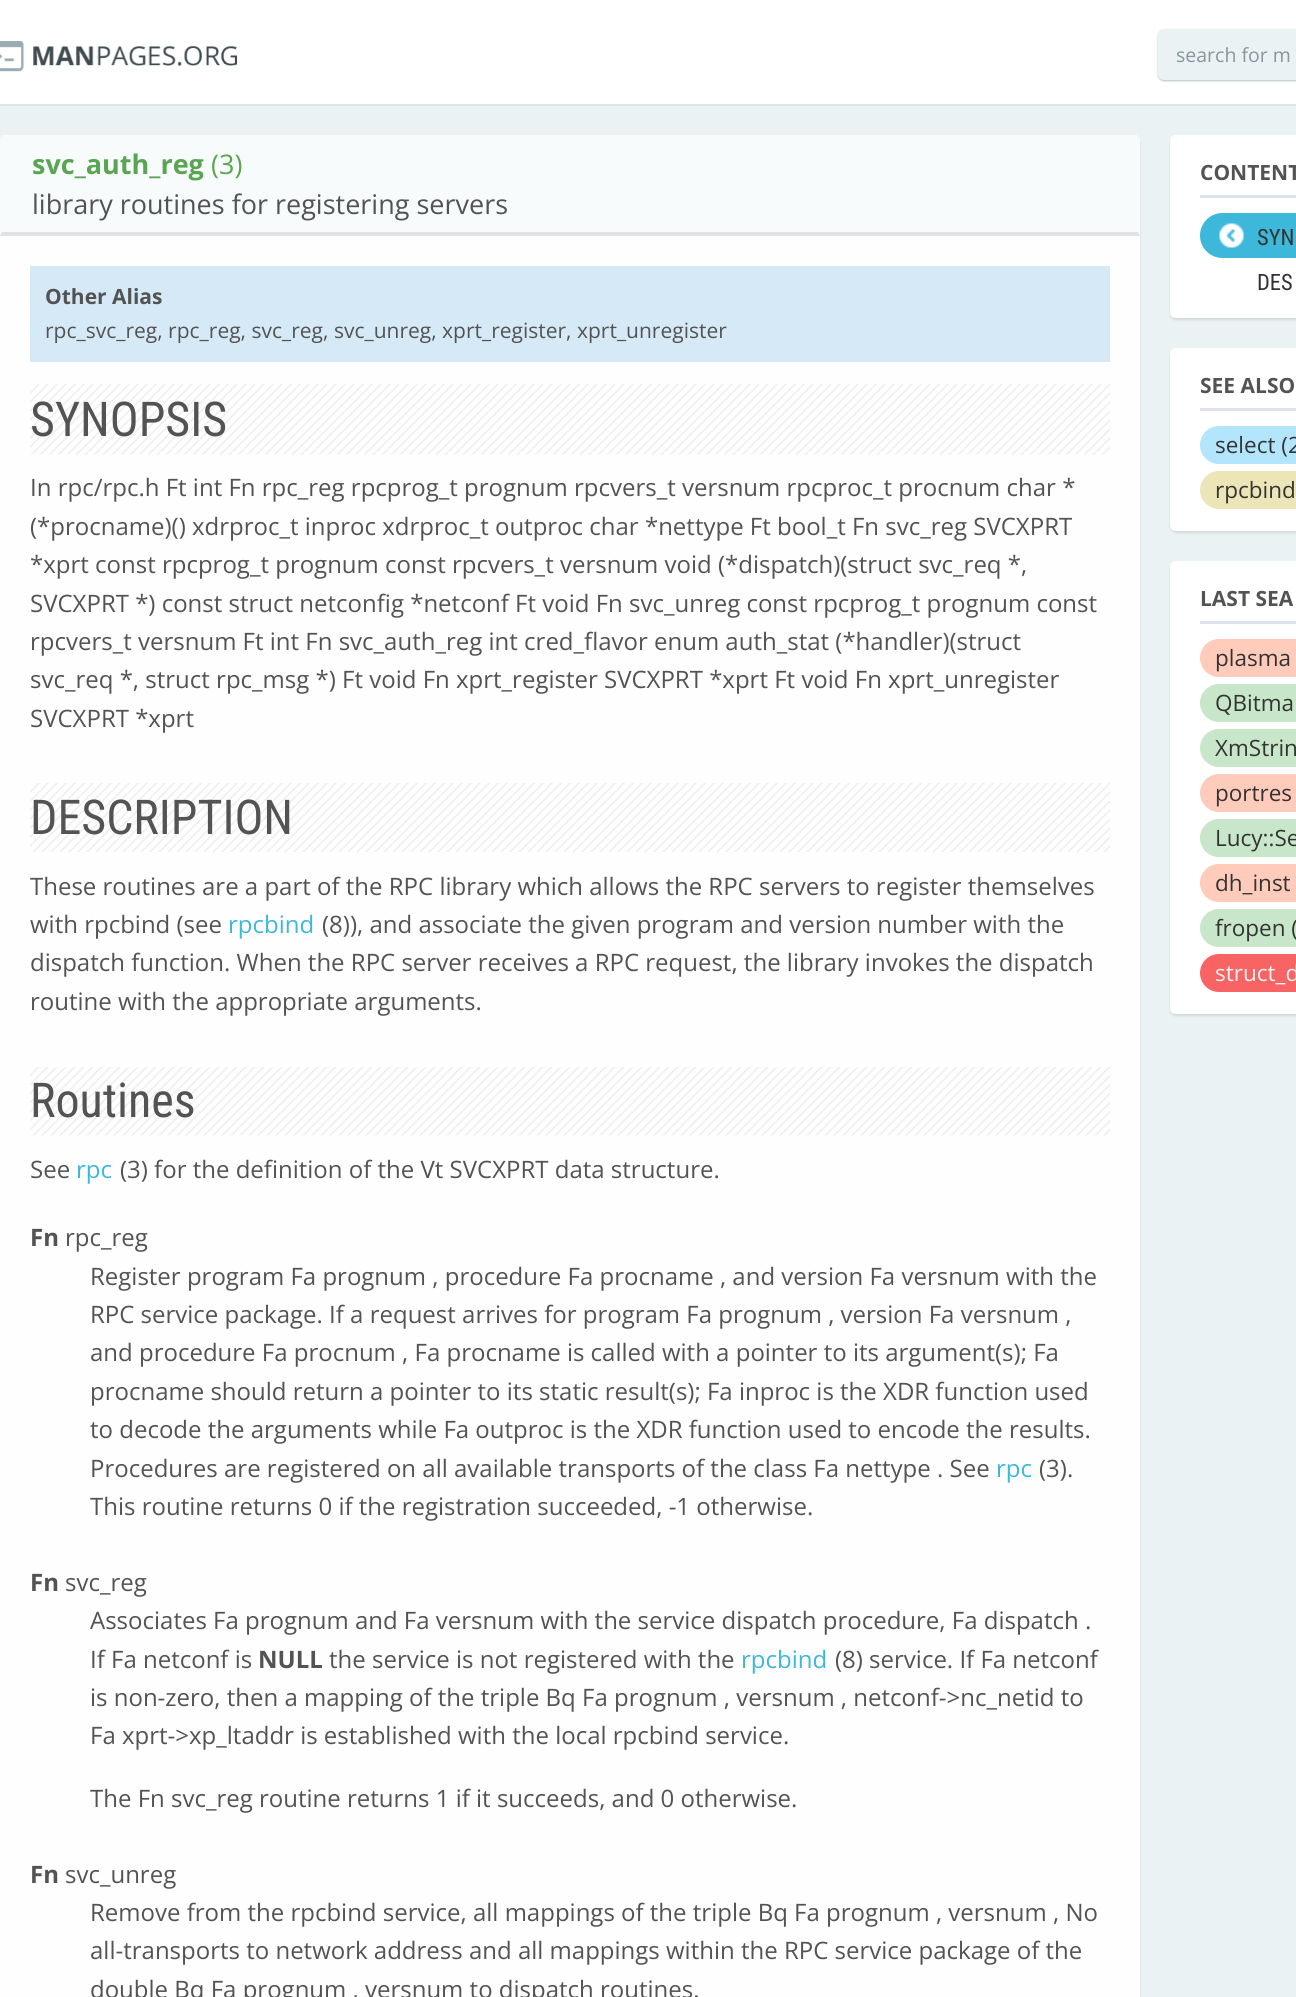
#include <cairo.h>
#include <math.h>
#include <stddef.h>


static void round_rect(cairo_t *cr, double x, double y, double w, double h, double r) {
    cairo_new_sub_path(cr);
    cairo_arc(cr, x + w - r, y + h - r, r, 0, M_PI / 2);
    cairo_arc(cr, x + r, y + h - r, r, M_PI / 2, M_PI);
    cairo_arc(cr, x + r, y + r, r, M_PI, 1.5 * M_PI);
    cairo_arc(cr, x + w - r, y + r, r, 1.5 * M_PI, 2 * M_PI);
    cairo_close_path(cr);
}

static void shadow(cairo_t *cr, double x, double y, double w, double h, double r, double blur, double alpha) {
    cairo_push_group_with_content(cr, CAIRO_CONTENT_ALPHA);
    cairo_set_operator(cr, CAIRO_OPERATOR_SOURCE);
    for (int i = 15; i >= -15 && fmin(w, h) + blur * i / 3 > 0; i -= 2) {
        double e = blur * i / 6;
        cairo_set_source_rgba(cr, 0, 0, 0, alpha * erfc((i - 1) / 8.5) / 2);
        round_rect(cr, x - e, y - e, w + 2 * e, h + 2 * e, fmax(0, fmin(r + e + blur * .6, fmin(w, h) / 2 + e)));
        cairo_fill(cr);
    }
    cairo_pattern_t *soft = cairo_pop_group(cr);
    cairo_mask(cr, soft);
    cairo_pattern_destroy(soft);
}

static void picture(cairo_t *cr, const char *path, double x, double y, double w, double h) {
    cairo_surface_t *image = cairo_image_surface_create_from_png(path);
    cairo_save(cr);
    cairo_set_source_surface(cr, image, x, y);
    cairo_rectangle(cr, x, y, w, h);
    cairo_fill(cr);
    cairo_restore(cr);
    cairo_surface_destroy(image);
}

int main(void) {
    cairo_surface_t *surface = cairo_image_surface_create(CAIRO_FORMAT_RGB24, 1296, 1997);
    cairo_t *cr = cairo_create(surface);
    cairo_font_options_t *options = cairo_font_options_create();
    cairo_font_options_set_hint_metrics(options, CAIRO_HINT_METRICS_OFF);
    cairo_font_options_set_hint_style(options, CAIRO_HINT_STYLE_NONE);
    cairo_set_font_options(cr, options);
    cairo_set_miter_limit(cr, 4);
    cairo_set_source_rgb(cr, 0.918, 0.949, 0.957);
    cairo_paint(cr);
    cairo_set_source_rgb(cr, 1, 1, 1);
    cairo_rectangle(cr, 0, 0, 1296, 104);
    cairo_fill(cr);
    cairo_set_source_rgb(cr, 0.863, 0.898, 0.906);
    cairo_rectangle(cr, 0, 104, 1296, 2);
    cairo_fill(cr);
    picture(cr, "img1.png", 0, 41, 237, 31);
    cairo_set_source_rgb(cr, 0.024, 0.184, 0.216);
    shadow(cr, 1158, 30, 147, 51, 6, 1, 0.3);
    cairo_set_source_rgb(cr, 0.918, 0.949, 0.957);
    round_rect(cr, 1158, 29, 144, 51, 6);
    cairo_fill(cr);
    cairo_select_font_face(cr, "Open Sans", CAIRO_FONT_SLANT_NORMAL, CAIRO_FONT_WEIGHT_NORMAL);
    cairo_set_font_size(cr, 19.5);
    cairo_set_source_rgb(cr, 0.525, 0.588, 0.616);
    cairo_move_to(cr, 1176, 62);
    cairo_show_text(cr, "search for m");
    cairo_set_source_rgb(cr, 0, 0, 0);
    shadow(cr, 0, 137, 1140, 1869, 6, 1, 0.1);
    cairo_set_source_rgb(cr, 0.996, 0.996, 0.996);
    cairo_new_path(cr);
    cairo_move_to(cr, 6, 135);
    cairo_line_to(cr, 1134, 135);
    cairo_curve_to(cr, 1137.5, 135, 1140, 137.5, 1140, 141);
    cairo_line_to(cr, 1140, 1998);
    cairo_line_to(cr, 0, 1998);
    cairo_line_to(cr, 0, 141);
    cairo_curve_to(cr, 0, 137.5, 2.5, 135, 6, 135);
    cairo_close_path(cr);
    cairo_fill(cr);
    cairo_set_source_rgb(cr, 0.965, 0.984, 0.988);
    cairo_new_path(cr);
    cairo_move_to(cr, 5, 135);
    cairo_line_to(cr, 1135, 135);
    cairo_curve_to(cr, 1138, 135, 1140, 137, 1140, 140);
    cairo_line_to(cr, 1140, 236);
    cairo_line_to(cr, 0, 236);
    cairo_line_to(cr, 0, 140);
    cairo_curve_to(cr, 0, 137, 2, 135, 5, 135);
    cairo_close_path(cr);
    cairo_fill(cr);
    cairo_set_source_rgb(cr, 0.875, 0.89, 0.914);
    cairo_new_path(cr);
    cairo_move_to(cr, 1140, 236);
    cairo_line_to(cr, 0, 236);
    cairo_line_to(cr, 2, 232);
    cairo_line_to(cr, 1138, 232);
    cairo_close_path(cr);
    cairo_fill(cr);
    cairo_select_font_face(cr, "Open Sans", CAIRO_FONT_SLANT_NORMAL, CAIRO_FONT_WEIGHT_BOLD);
    cairo_set_font_size(cr, 27);
    cairo_set_source_rgb(cr, 0.349, 0.647, 0.322);
    cairo_move_to(cr, 32, 174);
    cairo_show_text(cr, "svc_auth_reg");
    cairo_select_font_face(cr, "Open Sans", CAIRO_FONT_SLANT_NORMAL, CAIRO_FONT_WEIGHT_NORMAL);
    cairo_move_to(cr, 211, 174);
    cairo_show_text(cr, "(3)");
    cairo_set_source_rgb(cr, 0.325, 0.325, 0.325);
    cairo_move_to(cr, 32, 214);
    cairo_show_text(cr, "library routines for registering servers");
    cairo_set_source_rgb(cr, 0.835, 0.914, 0.965);
    cairo_rectangle(cr, 30, 266, 1080, 96);
    cairo_fill(cr);
    cairo_select_font_face(cr, "Open Sans", CAIRO_FONT_SLANT_NORMAL, CAIRO_FONT_WEIGHT_BOLD);
    cairo_set_font_size(cr, 21);
    cairo_set_source_rgb(cr, 0.325, 0.325, 0.325);
    cairo_move_to(cr, 45, 304);
    cairo_show_text(cr, "Other Alias");
    cairo_select_font_face(cr, "Open Sans", CAIRO_FONT_SLANT_NORMAL, CAIRO_FONT_WEIGHT_NORMAL);
    cairo_move_to(cr, 45, 338);
    cairo_show_text(cr, "rpc_svc_reg, rpc_reg, svc_reg, svc_unreg, xprt_register, xprt_unregister");
    picture(cr, "img2.png", 30, 384, 1080, 71);
    cairo_select_font_face(cr, "Roboto Condensed", CAIRO_FONT_SLANT_NORMAL, CAIRO_FONT_WEIGHT_NORMAL);
    cairo_set_font_size(cr, 48);
    cairo_move_to(cr, 30, 436);
    cairo_show_text(cr, "SYNOPSIS");
    cairo_select_font_face(cr, "Open Sans", CAIRO_FONT_SLANT_NORMAL, CAIRO_FONT_WEIGHT_NORMAL);
    cairo_set_font_size(cr, 24);
    cairo_move_to(cr, 30, 496);
    cairo_show_text(cr, "In rpc/rpc.h Ft int Fn rpc_reg rpcprog_t prognum rpcvers_t versnum rpcproc_t procnum char *");
    cairo_move_to(cr, 30, 535);
    cairo_show_text(cr, "(*procname)() xdrproc_t inproc xdrproc_t outproc char *nettype Ft bool_t Fn svc_reg SVCXPRT");
    cairo_move_to(cr, 30, 573);
    cairo_show_text(cr, "*xprt const rpcprog_t prognum const rpcvers_t versnum void (*dispatch)(struct svc_req *,");
    cairo_move_to(cr, 30, 612);
    cairo_show_text(cr, "SVCXPRT *) const struct netconfig *netconf Ft void Fn svc_unreg const rpcprog_t prognum const");
    cairo_move_to(cr, 30, 650);
    cairo_show_text(cr, "rpcvers_t versnum Ft int Fn svc_auth_reg int cred_flavor enum auth_stat (*handler)(struct");
    cairo_move_to(cr, 30, 688);
    cairo_show_text(cr, "svc_req *, struct rpc_msg *) Ft void Fn xprt_register SVCXPRT *xprt Ft void Fn xprt_unregister");
    cairo_move_to(cr, 30, 727);
    cairo_show_text(cr, "SVCXPRT *xprt");
    picture(cr, "img3.png", 30, 783, 1080, 69);
    cairo_select_font_face(cr, "Roboto Condensed", CAIRO_FONT_SLANT_NORMAL, CAIRO_FONT_WEIGHT_NORMAL);
    cairo_set_font_size(cr, 48);
    cairo_move_to(cr, 30, 834);
    cairo_show_text(cr, "DESCRIPTION");
    cairo_select_font_face(cr, "Open Sans", CAIRO_FONT_SLANT_NORMAL, CAIRO_FONT_WEIGHT_NORMAL);
    cairo_set_font_size(cr, 24);
    cairo_move_to(cr, 30, 895);
    cairo_show_text(cr, "These routines are a part of the RPC library which allows the RPC servers to register themselves");
    cairo_move_to(cr, 30, 933);
    cairo_show_text(cr, "with rpcbind (see");
    cairo_set_source_rgb(cr, 0.239, 0.722, 0.859);
    cairo_move_to(cr, 228, 933);
    cairo_show_text(cr, "rpcbind");
    cairo_set_source_rgb(cr, 0.325, 0.325, 0.325);
    cairo_move_to(cr, 322, 933);
    cairo_show_text(cr, "(8)), and associate the given program and version number with the");
    cairo_move_to(cr, 30, 971);
    cairo_show_text(cr, "dispatch function. When the RPC server receives a RPC request, the library invokes the dispatch");
    cairo_move_to(cr, 30, 1010);
    cairo_show_text(cr, "routine with the appropriate arguments.");
    picture(cr, "img4.png", 30, 1067, 1080, 69);
    cairo_select_font_face(cr, "Roboto Condensed", CAIRO_FONT_SLANT_NORMAL, CAIRO_FONT_WEIGHT_NORMAL);
    cairo_set_font_size(cr, 48);
    cairo_move_to(cr, 30, 1117);
    cairo_show_text(cr, "Routines");
    cairo_select_font_face(cr, "Open Sans", CAIRO_FONT_SLANT_NORMAL, CAIRO_FONT_WEIGHT_NORMAL);
    cairo_set_font_size(cr, 24);
    cairo_move_to(cr, 30, 1178);
    cairo_show_text(cr, "See");
    cairo_set_source_rgb(cr, 0.239, 0.722, 0.859);
    cairo_move_to(cr, 76, 1178);
    cairo_show_text(cr, "rpc");
    cairo_set_source_rgb(cr, 0.325, 0.325, 0.325);
    cairo_move_to(cr, 120, 1178);
    cairo_show_text(cr, "(3) for the definition of the Vt SVCXPRT data structure.");
    cairo_select_font_face(cr, "Open Sans", CAIRO_FONT_SLANT_NORMAL, CAIRO_FONT_WEIGHT_BOLD);
    cairo_move_to(cr, 30, 1246);
    cairo_show_text(cr, "Fn");
    cairo_select_font_face(cr, "Open Sans", CAIRO_FONT_SLANT_NORMAL, CAIRO_FONT_WEIGHT_NORMAL);
    cairo_move_to(cr, 65, 1246);
    cairo_show_text(cr, "rpc_reg");
    cairo_move_to(cr, 90, 1285);
    cairo_show_text(cr, "Register program Fa prognum , procedure Fa procname , and version Fa versnum with the");
    cairo_move_to(cr, 90, 1323);
    cairo_show_text(cr, "RPC service package. If a request arrives for program Fa prognum , version Fa versnum ,");
    cairo_move_to(cr, 90, 1361);
    cairo_show_text(cr, "and procedure Fa procnum , Fa procname is called with a pointer to its argument(s); Fa");
    cairo_move_to(cr, 90, 1400);
    cairo_show_text(cr, "procname should return a pointer to its static result(s); Fa inproc is the XDR function used");
    cairo_move_to(cr, 90, 1438);
    cairo_show_text(cr, "to decode the arguments while Fa outproc is the XDR function used to encode the results.");
    cairo_move_to(cr, 90, 1477);
    cairo_show_text(cr, "Procedures are registered on all available transports of the class Fa nettype . See");
    cairo_set_source_rgb(cr, 0.239, 0.722, 0.859);
    cairo_move_to(cr, 996, 1477);
    cairo_show_text(cr, "rpc");
    cairo_set_source_rgb(cr, 0.325, 0.325, 0.325);
    cairo_move_to(cr, 1039, 1477);
    cairo_show_text(cr, "(3).");
    cairo_move_to(cr, 90, 1515);
    cairo_show_text(cr, "This routine returns 0 if the registration succeeded, -1 otherwise.");
    cairo_select_font_face(cr, "Open Sans", CAIRO_FONT_SLANT_NORMAL, CAIRO_FONT_WEIGHT_BOLD);
    cairo_move_to(cr, 30, 1591);
    cairo_show_text(cr, "Fn");
    cairo_select_font_face(cr, "Open Sans", CAIRO_FONT_SLANT_NORMAL, CAIRO_FONT_WEIGHT_NORMAL);
    cairo_move_to(cr, 65, 1591);
    cairo_show_text(cr, "svc_reg");
    cairo_move_to(cr, 90, 1629);
    cairo_show_text(cr, "Associates Fa prognum and Fa versnum with the service dispatch procedure, Fa dispatch .");
    cairo_move_to(cr, 90, 1668);
    cairo_show_text(cr, "If Fa netconf is");
    cairo_select_font_face(cr, "Open Sans", CAIRO_FONT_SLANT_NORMAL, CAIRO_FONT_WEIGHT_BOLD);
    cairo_move_to(cr, 258, 1668);
    cairo_show_text(cr, "NULL");
    cairo_select_font_face(cr, "Open Sans", CAIRO_FONT_SLANT_NORMAL, CAIRO_FONT_WEIGHT_NORMAL);
    cairo_move_to(cr, 329, 1668);
    cairo_show_text(cr, "the service is not registered with the");
    cairo_set_source_rgb(cr, 0.239, 0.722, 0.859);
    cairo_move_to(cr, 741, 1668);
    cairo_show_text(cr, "rpcbind");
    cairo_set_source_rgb(cr, 0.325, 0.325, 0.325);
    cairo_move_to(cr, 835, 1668);
    cairo_show_text(cr, "(8) service. If Fa netconf");
    cairo_move_to(cr, 90, 1706);
    cairo_show_text(cr, "is non-zero, then a mapping of the triple Bq Fa prognum , versnum , netconf->nc_netid to");
    cairo_move_to(cr, 90, 1744);
    cairo_show_text(cr, "Fa xprt->xp_ltaddr is established with the local rpcbind service.");
    cairo_move_to(cr, 90, 1807);
    cairo_show_text(cr, "The Fn svc_reg routine returns 1 if it succeeds, and 0 otherwise.");
    cairo_select_font_face(cr, "Open Sans", CAIRO_FONT_SLANT_NORMAL, CAIRO_FONT_WEIGHT_BOLD);
    cairo_move_to(cr, 30, 1883);
    cairo_show_text(cr, "Fn");
    cairo_select_font_face(cr, "Open Sans", CAIRO_FONT_SLANT_NORMAL, CAIRO_FONT_WEIGHT_NORMAL);
    cairo_move_to(cr, 65, 1883);
    cairo_show_text(cr, "svc_unreg");
    cairo_move_to(cr, 90, 1921);
    cairo_show_text(cr, "Remove from the rpcbind service, all mappings of the triple Bq Fa prognum , versnum , No");
    cairo_move_to(cr, 90, 1959);
    cairo_show_text(cr, "all-transports to network address and all mappings within the RPC service package of the");
    cairo_move_to(cr, 90, 1998);
    cairo_show_text(cr, "double Bq Fa prognum , versnum to dispatch routines.");
    cairo_set_source_rgb(cr, 0, 0, 0);
    shadow(cr, 1170, 137, 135, 183, 6, 1, 0.1);
    cairo_set_source_rgb(cr, 1, 1, 1);
    cairo_new_path(cr);
    cairo_move_to(cr, 1176, 135);
    cairo_line_to(cr, 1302, 135);
    cairo_line_to(cr, 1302, 318);
    cairo_line_to(cr, 1176, 318);
    cairo_curve_to(cr, 1172.5, 318, 1170, 315.5, 1170, 312);
    cairo_line_to(cr, 1170, 141);
    cairo_curve_to(cr, 1170, 137.5, 1172.5, 135, 1176, 135);
    cairo_close_path(cr);
    cairo_fill(cr);
    cairo_set_source_rgb(cr, 0.875, 0.89, 0.914);
    cairo_rectangle(cr, 1200, 195, 96, 3);
    cairo_fill(cr);
    cairo_select_font_face(cr, "Open Sans", CAIRO_FONT_SLANT_NORMAL, CAIRO_FONT_WEIGHT_BOLD);
    cairo_set_font_size(cr, 21);
    cairo_set_source_rgb(cr, 0.325, 0.325, 0.325);
    cairo_move_to(cr, 1200, 180);
    cairo_show_text(cr, "CONTENT");
    cairo_set_source_rgb(cr, 0.239, 0.722, 0.859);
    round_rect(cr, 1200, 213, 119, 45, 22.5);
    cairo_fill(cr);
    picture(cr, "img5.png", 1219, 223, 25, 25);
    cairo_select_font_face(cr, "Roboto Condensed", CAIRO_FONT_SLANT_NORMAL, CAIRO_FONT_WEIGHT_NORMAL);
    cairo_set_font_size(cr, 22.5);
    cairo_set_source_rgb(cr, 0.2, 0.2, 0.2);
    cairo_move_to(cr, 1257, 245);
    cairo_show_text(cr, "SYN");
    cairo_move_to(cr, 1257, 290);
    cairo_show_text(cr, "DES");
    cairo_set_source_rgb(cr, 0, 0, 0);
    shadow(cr, 1170, 350, 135, 183, 6, 1, 0.1);
    cairo_set_source_rgb(cr, 1, 1, 1);
    cairo_new_path(cr);
    cairo_move_to(cr, 1176, 348);
    cairo_line_to(cr, 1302, 348);
    cairo_line_to(cr, 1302, 531);
    cairo_line_to(cr, 1176, 531);
    cairo_curve_to(cr, 1172.5, 531, 1170, 528.5, 1170, 525);
    cairo_line_to(cr, 1170, 354);
    cairo_curve_to(cr, 1170, 350.5, 1172.5, 348, 1176, 348);
    cairo_close_path(cr);
    cairo_fill(cr);
    cairo_set_source_rgb(cr, 0.875, 0.89, 0.914);
    cairo_rectangle(cr, 1200, 408, 96, 3);
    cairo_fill(cr);
    cairo_select_font_face(cr, "Open Sans", CAIRO_FONT_SLANT_NORMAL, CAIRO_FONT_WEIGHT_BOLD);
    cairo_set_font_size(cr, 21);
    cairo_set_source_rgb(cr, 0.325, 0.325, 0.325);
    cairo_move_to(cr, 1200, 393);
    cairo_show_text(cr, "SEE ALSO");
    cairo_set_source_rgb(cr, 0.702, 0.898, 0.988);
    round_rect(cr, 1200, 426, 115, 38, 19);
    cairo_fill(cr);
    cairo_select_font_face(cr, "Open Sans", CAIRO_FONT_SLANT_NORMAL, CAIRO_FONT_WEIGHT_NORMAL);
    cairo_set_font_size(cr, 22.5);
    cairo_set_source_rgb(cr, 0.2, 0.2, 0.2);
    cairo_move_to(cr, 1215, 453);
    cairo_show_text(cr, "select (2");
    cairo_set_source_rgb(cr, 0.918, 0.898, 0.718);
    round_rect(cr, 1200, 471, 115, 38, 19);
    cairo_fill(cr);
    cairo_set_source_rgb(cr, 0.2, 0.2, 0.2);
    cairo_move_to(cr, 1215, 498);
    cairo_show_text(cr, "rpcbind");
    cairo_set_source_rgb(cr, 0, 0, 0);
    shadow(cr, 1170, 563, 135, 453, 6, 1, 0.1);
    cairo_set_source_rgb(cr, 1, 1, 1);
    cairo_new_path(cr);
    cairo_move_to(cr, 1176, 561);
    cairo_line_to(cr, 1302, 561);
    cairo_line_to(cr, 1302, 1014);
    cairo_line_to(cr, 1176, 1014);
    cairo_curve_to(cr, 1172.5, 1014, 1170, 1011.5, 1170, 1008);
    cairo_line_to(cr, 1170, 567);
    cairo_curve_to(cr, 1170, 563.5, 1172.5, 561, 1176, 561);
    cairo_close_path(cr);
    cairo_fill(cr);
    cairo_set_source_rgb(cr, 0.875, 0.89, 0.914);
    cairo_rectangle(cr, 1200, 621, 96, 3);
    cairo_fill(cr);
    cairo_select_font_face(cr, "Open Sans", CAIRO_FONT_SLANT_NORMAL, CAIRO_FONT_WEIGHT_BOLD);
    cairo_set_font_size(cr, 21);
    cairo_set_source_rgb(cr, 0.325, 0.325, 0.325);
    cairo_move_to(cr, 1200, 606);
    cairo_show_text(cr, "LAST SEA");
    cairo_set_source_rgb(cr, 1, 0.8, 0.737);
    round_rect(cr, 1200, 639, 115, 38, 19);
    cairo_fill(cr);
    cairo_select_font_face(cr, "Open Sans", CAIRO_FONT_SLANT_NORMAL, CAIRO_FONT_WEIGHT_NORMAL);
    cairo_set_font_size(cr, 22.5);
    cairo_set_source_rgb(cr, 0.2, 0.2, 0.2);
    cairo_move_to(cr, 1215, 666);
    cairo_show_text(cr, "plasma");
    cairo_set_source_rgb(cr, 0.784, 0.902, 0.788);
    round_rect(cr, 1200, 684, 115, 38, 19);
    cairo_fill(cr);
    cairo_set_source_rgb(cr, 0.2, 0.2, 0.2);
    cairo_move_to(cr, 1215, 711);
    cairo_show_text(cr, "QBitma");
    cairo_set_source_rgb(cr, 0.784, 0.902, 0.788);
    round_rect(cr, 1200, 729, 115, 38, 19);
    cairo_fill(cr);
    cairo_set_source_rgb(cr, 0.2, 0.2, 0.2);
    cairo_move_to(cr, 1215, 756);
    cairo_show_text(cr, "XmStrin");
    cairo_set_source_rgb(cr, 1, 0.8, 0.737);
    round_rect(cr, 1200, 774, 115, 38, 19);
    cairo_fill(cr);
    cairo_set_source_rgb(cr, 0.2, 0.2, 0.2);
    cairo_move_to(cr, 1215, 801);
    cairo_show_text(cr, "portres");
    cairo_set_source_rgb(cr, 0.784, 0.902, 0.788);
    round_rect(cr, 1200, 819, 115, 38, 19);
    cairo_fill(cr);
    cairo_set_source_rgb(cr, 0.2, 0.2, 0.2);
    cairo_move_to(cr, 1215, 846);
    cairo_show_text(cr, "Lucy::Se");
    cairo_set_source_rgb(cr, 1, 0.8, 0.737);
    round_rect(cr, 1200, 864, 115, 38, 19);
    cairo_fill(cr);
    cairo_set_source_rgb(cr, 0.2, 0.2, 0.2);
    cairo_move_to(cr, 1215, 891);
    cairo_show_text(cr, "dh_inst");
    cairo_set_source_rgb(cr, 0.784, 0.902, 0.788);
    round_rect(cr, 1200, 909, 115, 38, 19);
    cairo_fill(cr);
    cairo_set_source_rgb(cr, 0.2, 0.2, 0.2);
    cairo_move_to(cr, 1215, 936);
    cairo_show_text(cr, "fropen (");
    cairo_set_source_rgb(cr, 0.969, 0.388, 0.388);
    round_rect(cr, 1200, 954, 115, 38, 19);
    cairo_fill(cr);
    cairo_set_source_rgb(cr, 0.918, 0.949, 0.957);
    cairo_move_to(cr, 1215, 981);
    cairo_show_text(cr, "struct_d");
    cairo_surface_write_to_png(surface, "page.png");
    cairo_font_options_destroy(options);
    cairo_destroy(cr);
    cairo_surface_destroy(surface);
    return 0;
}
